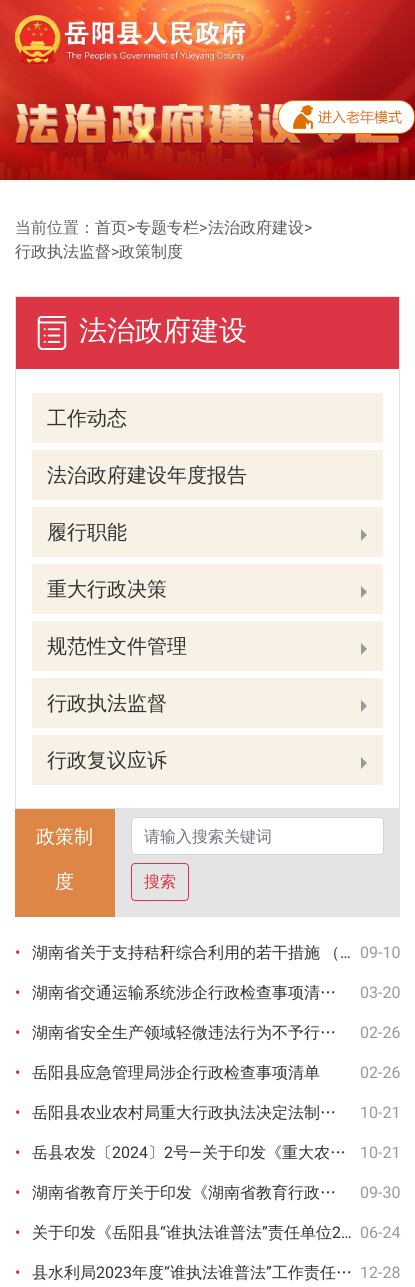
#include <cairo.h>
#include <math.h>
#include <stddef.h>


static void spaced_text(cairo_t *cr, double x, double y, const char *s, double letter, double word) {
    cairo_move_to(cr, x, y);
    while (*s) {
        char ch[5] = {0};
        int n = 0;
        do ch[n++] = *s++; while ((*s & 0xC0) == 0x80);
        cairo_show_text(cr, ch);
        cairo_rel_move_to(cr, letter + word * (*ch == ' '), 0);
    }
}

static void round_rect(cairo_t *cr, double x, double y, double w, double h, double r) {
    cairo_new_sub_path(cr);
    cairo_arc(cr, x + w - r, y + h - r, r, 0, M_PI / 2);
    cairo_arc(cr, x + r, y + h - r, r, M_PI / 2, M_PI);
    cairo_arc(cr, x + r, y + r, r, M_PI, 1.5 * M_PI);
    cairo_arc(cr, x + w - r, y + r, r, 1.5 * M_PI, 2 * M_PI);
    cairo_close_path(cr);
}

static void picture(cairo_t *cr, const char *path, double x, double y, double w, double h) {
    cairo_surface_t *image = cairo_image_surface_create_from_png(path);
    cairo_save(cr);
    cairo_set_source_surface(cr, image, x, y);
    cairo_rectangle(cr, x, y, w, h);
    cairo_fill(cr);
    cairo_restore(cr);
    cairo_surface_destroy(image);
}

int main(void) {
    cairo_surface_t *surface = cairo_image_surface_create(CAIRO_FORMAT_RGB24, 415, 1287);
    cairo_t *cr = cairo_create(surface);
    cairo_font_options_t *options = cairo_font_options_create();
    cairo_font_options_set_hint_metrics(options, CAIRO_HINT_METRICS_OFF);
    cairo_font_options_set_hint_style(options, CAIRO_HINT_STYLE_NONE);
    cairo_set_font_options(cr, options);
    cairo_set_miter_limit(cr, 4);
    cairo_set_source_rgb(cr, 1, 1, 1);
    cairo_paint(cr);
    picture(cr, "img2.png", 0, 0, 415, 180);
    picture(cr, "img4.png", 15, 104, 385, 46);
    picture(cr, "img1.png", 278, 100, 137, 34);
    picture(cr, "img3.png", 15, 15, 231, 49);
    cairo_select_font_face(cr, "WenQuanYi Zen Hei Medium", CAIRO_FONT_SLANT_NORMAL, CAIRO_FONT_WEIGHT_NORMAL);
    cairo_set_font_size(cr, 16);
    cairo_set_source_rgb(cr, 0.4, 0.4, 0.4);
    cairo_move_to(cr, 15, 233);
    cairo_show_text(cr, "当前位置：");
    cairo_set_source_rgb(cr, 0.349, 0.349, 0.349);
    cairo_move_to(cr, 95, 233);
    cairo_show_text(cr, "首页");
    cairo_select_font_face(cr, "Roboto", CAIRO_FONT_SLANT_NORMAL, CAIRO_FONT_WEIGHT_NORMAL);
    cairo_set_source_rgb(cr, 0.4, 0.4, 0.4);
    cairo_move_to(cr, 127, 233);
    cairo_show_text(cr, ">");
    cairo_select_font_face(cr, "WenQuanYi Zen Hei Medium", CAIRO_FONT_SLANT_NORMAL, CAIRO_FONT_WEIGHT_NORMAL);
    cairo_set_source_rgb(cr, 0.349, 0.349, 0.349);
    cairo_move_to(cr, 135, 233);
    cairo_show_text(cr, "专题专栏");
    cairo_select_font_face(cr, "Roboto", CAIRO_FONT_SLANT_NORMAL, CAIRO_FONT_WEIGHT_NORMAL);
    cairo_set_source_rgb(cr, 0.4, 0.4, 0.4);
    cairo_move_to(cr, 199, 233);
    cairo_show_text(cr, ">");
    cairo_select_font_face(cr, "WenQuanYi Zen Hei Medium", CAIRO_FONT_SLANT_NORMAL, CAIRO_FONT_WEIGHT_NORMAL);
    cairo_set_source_rgb(cr, 0.349, 0.349, 0.349);
    cairo_move_to(cr, 208, 233);
    cairo_show_text(cr, "法治政府建设");
    cairo_select_font_face(cr, "Roboto", CAIRO_FONT_SLANT_NORMAL, CAIRO_FONT_WEIGHT_NORMAL);
    cairo_set_source_rgb(cr, 0.4, 0.4, 0.4);
    cairo_move_to(cr, 304, 233);
    cairo_show_text(cr, ">");
    cairo_select_font_face(cr, "WenQuanYi Zen Hei Medium", CAIRO_FONT_SLANT_NORMAL, CAIRO_FONT_WEIGHT_NORMAL);
    cairo_set_source_rgb(cr, 0.349, 0.349, 0.349);
    cairo_move_to(cr, 15, 257);
    cairo_show_text(cr, "行政执法监督");
    cairo_select_font_face(cr, "Roboto", CAIRO_FONT_SLANT_NORMAL, CAIRO_FONT_WEIGHT_NORMAL);
    cairo_set_source_rgb(cr, 0.4, 0.4, 0.4);
    cairo_move_to(cr, 111, 257);
    cairo_show_text(cr, ">");
    cairo_select_font_face(cr, "WenQuanYi Zen Hei Medium", CAIRO_FONT_SLANT_NORMAL, CAIRO_FONT_WEIGHT_NORMAL);
    cairo_set_source_rgb(cr, 0.349, 0.349, 0.349);
    cairo_move_to(cr, 119, 257);
    cairo_show_text(cr, "政策制度");
    cairo_rectangle(cr, 15.5, 296.5, 384, 512);
    cairo_set_source_rgb(cr, 0.871, 0.886, 0.902);
    cairo_set_line_width(cr, 1);
    cairo_stroke(cr);
    cairo_set_source_rgb(cr, 0.863, 0.208, 0.271);
    cairo_rectangle(cr, 16, 297, 383, 72);
    cairo_fill(cr);
    picture(cr, "img5.png", 37, 316, 30, 34);
    cairo_set_font_size(cr, 28);
    cairo_set_source_rgb(cr, 1, 1, 1);
    cairo_move_to(cr, 79, 340);
    cairo_show_text(cr, "法治政府建设");
    cairo_set_source_rgb(cr, 0.969, 0.945, 0.902);
    cairo_rectangle(cr, 32, 393, 351, 50);
    cairo_fill(cr);
    cairo_set_font_size(cr, 20);
    cairo_set_source_rgb(cr, 0.2, 0.2, 0.2);
    cairo_move_to(cr, 47, 425);
    cairo_show_text(cr, "工作动态");
    cairo_set_source_rgb(cr, 0.969, 0.945, 0.902);
    cairo_rectangle(cr, 32, 450, 351, 50);
    cairo_fill(cr);
    cairo_set_source_rgb(cr, 0.2, 0.2, 0.2);
    cairo_move_to(cr, 47, 482);
    cairo_show_text(cr, "法治政府建设年度报告");
    cairo_set_source_rgb(cr, 0.969, 0.945, 0.902);
    cairo_rectangle(cr, 32, 507, 351, 50);
    cairo_fill(cr);
    cairo_set_source_rgb(cr, 0.2, 0.2, 0.2);
    cairo_move_to(cr, 47, 539);
    cairo_show_text(cr, "履行职能");
    cairo_set_source_rgb(cr, 0.6, 0.6, 0.6);
    cairo_new_path(cr);
    cairo_move_to(cr, 361, 541);
    cairo_line_to(cr, 361, 529);
    cairo_line_to(cr, 367, 535);
    cairo_close_path(cr);
    cairo_fill(cr);
    cairo_set_source_rgb(cr, 0.969, 0.945, 0.902);
    cairo_rectangle(cr, 32, 564, 351, 50);
    cairo_fill(cr);
    cairo_set_source_rgb(cr, 0.2, 0.2, 0.2);
    cairo_move_to(cr, 47, 596);
    cairo_show_text(cr, "重大行政决策");
    cairo_set_source_rgb(cr, 0.6, 0.6, 0.6);
    cairo_new_path(cr);
    cairo_move_to(cr, 361, 598);
    cairo_line_to(cr, 361, 586);
    cairo_line_to(cr, 367, 592);
    cairo_close_path(cr);
    cairo_fill(cr);
    cairo_set_source_rgb(cr, 0.969, 0.945, 0.902);
    cairo_rectangle(cr, 32, 621, 351, 50);
    cairo_fill(cr);
    cairo_set_source_rgb(cr, 0.2, 0.2, 0.2);
    cairo_move_to(cr, 47, 653);
    cairo_show_text(cr, "规范性文件管理");
    cairo_set_source_rgb(cr, 0.6, 0.6, 0.6);
    cairo_new_path(cr);
    cairo_move_to(cr, 361, 655);
    cairo_line_to(cr, 361, 643);
    cairo_line_to(cr, 367, 649);
    cairo_close_path(cr);
    cairo_fill(cr);
    cairo_set_source_rgb(cr, 0.969, 0.945, 0.902);
    cairo_rectangle(cr, 32, 678, 351, 50);
    cairo_fill(cr);
    cairo_set_source_rgb(cr, 0.2, 0.2, 0.2);
    cairo_move_to(cr, 47, 710);
    cairo_show_text(cr, "行政执法监督");
    cairo_set_source_rgb(cr, 0.6, 0.6, 0.6);
    cairo_new_path(cr);
    cairo_move_to(cr, 361, 712);
    cairo_line_to(cr, 361, 700);
    cairo_line_to(cr, 367, 706);
    cairo_close_path(cr);
    cairo_fill(cr);
    cairo_set_source_rgb(cr, 0.969, 0.945, 0.902);
    cairo_rectangle(cr, 32, 735, 351, 50);
    cairo_fill(cr);
    cairo_set_source_rgb(cr, 0.2, 0.2, 0.2);
    cairo_move_to(cr, 47, 767);
    cairo_show_text(cr, "行政复议应诉");
    cairo_set_source_rgb(cr, 0.6, 0.6, 0.6);
    cairo_new_path(cr);
    cairo_move_to(cr, 361, 769);
    cairo_line_to(cr, 361, 757);
    cairo_line_to(cr, 367, 763);
    cairo_close_path(cr);
    cairo_fill(cr);
    cairo_set_source_rgb(cr, 0.894, 0.894, 0.894);
    cairo_rectangle(cr, 115, 809, 285, 108);
    cairo_fill(cr);
    cairo_set_source_rgb(cr, 0.867, 0.525, 0.271);
    cairo_rectangle(cr, 15, 809, 100, 108);
    cairo_fill(cr);
    cairo_set_font_size(cr, 19);
    cairo_set_source_rgb(cr, 1, 1, 1);
    cairo_move_to(cr, 36, 843);
    cairo_show_text(cr, "政策制");
    cairo_move_to(cr, 55, 888);
    cairo_show_text(cr, "度");
    round_rect(cr, 131.5, 817.5, 252, 37, 3.5);
    cairo_fill_preserve(cr);
    cairo_set_source_rgb(cr, 0.808, 0.831, 0.855);
    cairo_stroke(cr);
    cairo_set_font_size(cr, 16);
    cairo_set_source_rgb(cr, 0.424, 0.459, 0.49);
    cairo_move_to(cr, 144, 842);
    cairo_show_text(cr, "请输入搜索关键词");
    round_rect(cr, 131.5, 863.5, 57, 37, 3.5);
    cairo_set_source_rgb(cr, 0.863, 0.208, 0.271);
    cairo_stroke(cr);
    cairo_move_to(cr, 144, 887);
    cairo_show_text(cr, "搜索");
    cairo_select_font_face(cr, "Roboto", CAIRO_FONT_SLANT_NORMAL, CAIRO_FONT_WEIGHT_NORMAL);
    cairo_set_source_rgb(cr, 0.808, 0.176, 0.176);
    cairo_move_to(cr, 15, 958);
    cairo_show_text(cr, "•");
    cairo_select_font_face(cr, "WenQuanYi Zen Hei Medium", CAIRO_FONT_SLANT_NORMAL, CAIRO_FONT_WEIGHT_NORMAL);
    cairo_set_source_rgb(cr, 0.2, 0.2, 0.2);
    spaced_text(cr, 32, 958, "湖南省关于支持秸秆综合利用的若干措施 （", 0, -1);
    cairo_select_font_face(cr, "Roboto", CAIRO_FONT_SLANT_NORMAL, CAIRO_FONT_WEIGHT_NORMAL);
    cairo_move_to(cr, 340, 958);
    cairo_show_text(cr, "…");
    cairo_set_source_rgb(cr, 0.6, 0.6, 0.6);
    cairo_move_to(cr, 360, 958);
    cairo_show_text(cr, "09-10");
    cairo_set_source_rgb(cr, 0.808, 0.176, 0.176);
    cairo_move_to(cr, 15, 998);
    cairo_show_text(cr, "•");
    cairo_select_font_face(cr, "WenQuanYi Zen Hei Medium", CAIRO_FONT_SLANT_NORMAL, CAIRO_FONT_WEIGHT_NORMAL);
    cairo_set_source_rgb(cr, 0.2, 0.2, 0.2);
    cairo_move_to(cr, 32, 998);
    cairo_show_text(cr, "湖南省交通运输系统涉企行政检查事项清…");
    cairo_select_font_face(cr, "Roboto", CAIRO_FONT_SLANT_NORMAL, CAIRO_FONT_WEIGHT_NORMAL);
    cairo_set_source_rgb(cr, 0.6, 0.6, 0.6);
    cairo_move_to(cr, 360, 998);
    cairo_show_text(cr, "03-20");
    cairo_set_source_rgb(cr, 0.808, 0.176, 0.176);
    cairo_move_to(cr, 15, 1038);
    cairo_show_text(cr, "•");
    cairo_select_font_face(cr, "WenQuanYi Zen Hei Medium", CAIRO_FONT_SLANT_NORMAL, CAIRO_FONT_WEIGHT_NORMAL);
    cairo_set_source_rgb(cr, 0.2, 0.2, 0.2);
    cairo_move_to(cr, 32, 1038);
    cairo_show_text(cr, "湖南省安全生产领域轻微违法行为不予行…");
    cairo_select_font_face(cr, "Roboto", CAIRO_FONT_SLANT_NORMAL, CAIRO_FONT_WEIGHT_NORMAL);
    cairo_set_source_rgb(cr, 0.6, 0.6, 0.6);
    cairo_move_to(cr, 360, 1038);
    cairo_show_text(cr, "02-26");
    cairo_set_source_rgb(cr, 0.808, 0.176, 0.176);
    cairo_move_to(cr, 15, 1078);
    cairo_show_text(cr, "•");
    cairo_select_font_face(cr, "WenQuanYi Zen Hei Medium", CAIRO_FONT_SLANT_NORMAL, CAIRO_FONT_WEIGHT_NORMAL);
    cairo_set_source_rgb(cr, 0.2, 0.2, 0.2);
    cairo_move_to(cr, 32, 1078);
    cairo_show_text(cr, "岳阳县应急管理局涉企行政检查事项清单");
    cairo_select_font_face(cr, "Roboto", CAIRO_FONT_SLANT_NORMAL, CAIRO_FONT_WEIGHT_NORMAL);
    cairo_set_source_rgb(cr, 0.6, 0.6, 0.6);
    cairo_move_to(cr, 360, 1078);
    cairo_show_text(cr, "02-26");
    cairo_set_source_rgb(cr, 0.808, 0.176, 0.176);
    cairo_move_to(cr, 15, 1118);
    cairo_show_text(cr, "•");
    cairo_select_font_face(cr, "WenQuanYi Zen Hei Medium", CAIRO_FONT_SLANT_NORMAL, CAIRO_FONT_WEIGHT_NORMAL);
    cairo_set_source_rgb(cr, 0.2, 0.2, 0.2);
    cairo_move_to(cr, 32, 1118);
    cairo_show_text(cr, "岳阳县农业农村局重大行政执法决定法制…");
    cairo_select_font_face(cr, "Roboto", CAIRO_FONT_SLANT_NORMAL, CAIRO_FONT_WEIGHT_NORMAL);
    cairo_set_source_rgb(cr, 0.6, 0.6, 0.6);
    cairo_move_to(cr, 360, 1118);
    cairo_show_text(cr, "10-21");
    cairo_set_source_rgb(cr, 0.808, 0.176, 0.176);
    cairo_move_to(cr, 15, 1158);
    cairo_show_text(cr, "•");
    cairo_select_font_face(cr, "WenQuanYi Zen Hei Medium", CAIRO_FONT_SLANT_NORMAL, CAIRO_FONT_WEIGHT_NORMAL);
    cairo_set_source_rgb(cr, 0.2, 0.2, 0.2);
    cairo_move_to(cr, 32, 1158);
    cairo_show_text(cr, "岳县农发〔");
    cairo_select_font_face(cr, "Roboto", CAIRO_FONT_SLANT_NORMAL, CAIRO_FONT_WEIGHT_NORMAL);
    cairo_move_to(cr, 112, 1158);
    cairo_show_text(cr, "2024");
    cairo_select_font_face(cr, "WenQuanYi Zen Hei Medium", CAIRO_FONT_SLANT_NORMAL, CAIRO_FONT_WEIGHT_NORMAL);
    cairo_move_to(cr, 148, 1158);
    cairo_show_text(cr, "〕");
    cairo_select_font_face(cr, "Roboto", CAIRO_FONT_SLANT_NORMAL, CAIRO_FONT_WEIGHT_NORMAL);
    cairo_move_to(cr, 164, 1158);
    cairo_show_text(cr, "2");
    cairo_select_font_face(cr, "WenQuanYi Zen Hei Medium", CAIRO_FONT_SLANT_NORMAL, CAIRO_FONT_WEIGHT_NORMAL);
    cairo_move_to(cr, 173, 1158);
    cairo_show_text(cr, "号");
    cairo_select_font_face(cr, "Roboto", CAIRO_FONT_SLANT_NORMAL, CAIRO_FONT_WEIGHT_NORMAL);
    cairo_move_to(cr, 189, 1158);
    cairo_show_text(cr, "—");
    cairo_select_font_face(cr, "WenQuanYi Zen Hei Medium", CAIRO_FONT_SLANT_NORMAL, CAIRO_FONT_WEIGHT_NORMAL);
    cairo_move_to(cr, 202, 1158);
    cairo_show_text(cr, "关于印发《重大农…");
    cairo_select_font_face(cr, "Roboto", CAIRO_FONT_SLANT_NORMAL, CAIRO_FONT_WEIGHT_NORMAL);
    cairo_set_source_rgb(cr, 0.6, 0.6, 0.6);
    cairo_move_to(cr, 360, 1158);
    cairo_show_text(cr, "10-21");
    cairo_set_source_rgb(cr, 0.808, 0.176, 0.176);
    cairo_move_to(cr, 15, 1198);
    cairo_show_text(cr, "•");
    cairo_select_font_face(cr, "WenQuanYi Zen Hei Medium", CAIRO_FONT_SLANT_NORMAL, CAIRO_FONT_WEIGHT_NORMAL);
    cairo_set_source_rgb(cr, 0.2, 0.2, 0.2);
    cairo_move_to(cr, 32, 1198);
    cairo_show_text(cr, "湖南省教育厅关于印发《湖南省教育行政…");
    cairo_select_font_face(cr, "Roboto", CAIRO_FONT_SLANT_NORMAL, CAIRO_FONT_WEIGHT_NORMAL);
    cairo_set_source_rgb(cr, 0.6, 0.6, 0.6);
    cairo_move_to(cr, 360, 1198);
    cairo_show_text(cr, "09-30");
    cairo_set_source_rgb(cr, 0.808, 0.176, 0.176);
    cairo_move_to(cr, 15, 1238);
    cairo_show_text(cr, "•");
    cairo_select_font_face(cr, "WenQuanYi Zen Hei Medium", CAIRO_FONT_SLANT_NORMAL, CAIRO_FONT_WEIGHT_NORMAL);
    cairo_set_source_rgb(cr, 0.2, 0.2, 0.2);
    cairo_move_to(cr, 32, 1238);
    cairo_show_text(cr, "关于印发《岳阳县");
    cairo_select_font_face(cr, "Roboto", CAIRO_FONT_SLANT_NORMAL, CAIRO_FONT_WEIGHT_NORMAL);
    cairo_move_to(cr, 160, 1238);
    cairo_show_text(cr, "“");
    cairo_select_font_face(cr, "WenQuanYi Zen Hei Medium", CAIRO_FONT_SLANT_NORMAL, CAIRO_FONT_WEIGHT_NORMAL);
    cairo_move_to(cr, 166, 1238);
    cairo_show_text(cr, "谁执法谁普法");
    cairo_select_font_face(cr, "Roboto", CAIRO_FONT_SLANT_NORMAL, CAIRO_FONT_WEIGHT_NORMAL);
    cairo_move_to(cr, 262, 1238);
    cairo_show_text(cr, "”");
    cairo_select_font_face(cr, "WenQuanYi Zen Hei Medium", CAIRO_FONT_SLANT_NORMAL, CAIRO_FONT_WEIGHT_NORMAL);
    cairo_move_to(cr, 268, 1238);
    cairo_show_text(cr, "责任单位");
    cairo_select_font_face(cr, "Roboto", CAIRO_FONT_SLANT_NORMAL, CAIRO_FONT_WEIGHT_NORMAL);
    cairo_move_to(cr, 332, 1238);
    cairo_show_text(cr, "2…");
    cairo_set_source_rgb(cr, 0.6, 0.6, 0.6);
    cairo_move_to(cr, 360, 1238);
    cairo_show_text(cr, "06-24");
    cairo_select_font_face(cr, "WenQuanYi Zen Hei Medium", CAIRO_FONT_SLANT_NORMAL, CAIRO_FONT_WEIGHT_NORMAL);
    cairo_set_source_rgb(cr, 0.2, 0.2, 0.2);
    cairo_move_to(cr, 32, 1278);
    cairo_show_text(cr, "县水利局");
    cairo_select_font_face(cr, "Roboto", CAIRO_FONT_SLANT_NORMAL, CAIRO_FONT_WEIGHT_NORMAL);
    cairo_move_to(cr, 96, 1278);
    cairo_show_text(cr, "2023");
    cairo_select_font_face(cr, "WenQuanYi Zen Hei Medium", CAIRO_FONT_SLANT_NORMAL, CAIRO_FONT_WEIGHT_NORMAL);
    cairo_move_to(cr, 132, 1278);
    cairo_show_text(cr, "年度");
    cairo_select_font_face(cr, "Roboto", CAIRO_FONT_SLANT_NORMAL, CAIRO_FONT_WEIGHT_NORMAL);
    cairo_move_to(cr, 164, 1278);
    cairo_show_text(cr, "“");
    cairo_select_font_face(cr, "WenQuanYi Zen Hei Medium", CAIRO_FONT_SLANT_NORMAL, CAIRO_FONT_WEIGHT_NORMAL);
    cairo_move_to(cr, 170, 1278);
    cairo_show_text(cr, "谁执法谁普法");
    cairo_select_font_face(cr, "Roboto", CAIRO_FONT_SLANT_NORMAL, CAIRO_FONT_WEIGHT_NORMAL);
    cairo_move_to(cr, 266, 1278);
    cairo_show_text(cr, "”");
    cairo_select_font_face(cr, "WenQuanYi Zen Hei Medium", CAIRO_FONT_SLANT_NORMAL, CAIRO_FONT_WEIGHT_NORMAL);
    cairo_move_to(cr, 272, 1278);
    cairo_show_text(cr, "工作责任…");
    cairo_select_font_face(cr, "Roboto", CAIRO_FONT_SLANT_NORMAL, CAIRO_FONT_WEIGHT_NORMAL);
    cairo_set_source_rgb(cr, 0.808, 0.176, 0.176);
    cairo_move_to(cr, 15, 1278);
    cairo_show_text(cr, "•");
    cairo_set_source_rgb(cr, 0.6, 0.6, 0.6);
    cairo_move_to(cr, 360, 1278);
    cairo_show_text(cr, "12-28");
    cairo_surface_write_to_png(surface, "page.png");
    cairo_font_options_destroy(options);
    cairo_destroy(cr);
    cairo_surface_destroy(surface);
    return 0;
}
